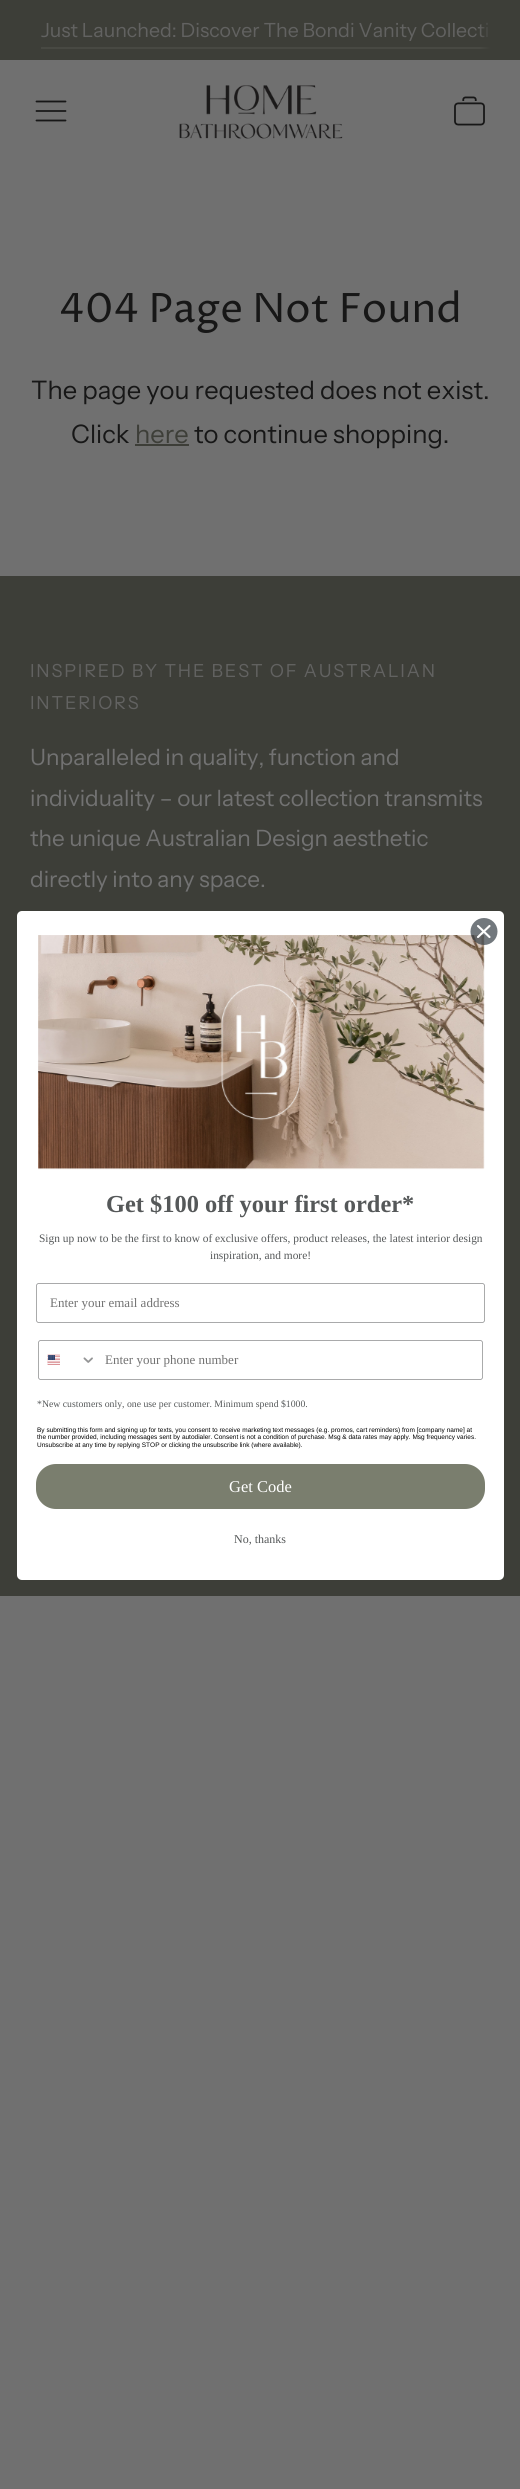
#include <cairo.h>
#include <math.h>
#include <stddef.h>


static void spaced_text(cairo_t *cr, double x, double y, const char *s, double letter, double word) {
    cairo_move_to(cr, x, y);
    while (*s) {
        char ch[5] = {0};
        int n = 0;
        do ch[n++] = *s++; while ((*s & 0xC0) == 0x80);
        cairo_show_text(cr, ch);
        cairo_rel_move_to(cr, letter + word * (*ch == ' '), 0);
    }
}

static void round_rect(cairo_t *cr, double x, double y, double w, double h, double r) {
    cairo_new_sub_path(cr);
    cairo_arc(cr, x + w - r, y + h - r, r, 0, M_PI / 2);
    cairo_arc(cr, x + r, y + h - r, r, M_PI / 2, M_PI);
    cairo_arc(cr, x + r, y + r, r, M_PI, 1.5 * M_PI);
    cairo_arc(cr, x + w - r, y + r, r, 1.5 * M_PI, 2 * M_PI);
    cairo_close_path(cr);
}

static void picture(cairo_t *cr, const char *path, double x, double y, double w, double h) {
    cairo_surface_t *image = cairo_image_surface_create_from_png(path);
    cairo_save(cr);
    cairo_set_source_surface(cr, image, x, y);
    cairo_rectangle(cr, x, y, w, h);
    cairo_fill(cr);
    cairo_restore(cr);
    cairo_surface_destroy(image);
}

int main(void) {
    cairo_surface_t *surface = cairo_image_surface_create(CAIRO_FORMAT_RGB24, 520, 2489);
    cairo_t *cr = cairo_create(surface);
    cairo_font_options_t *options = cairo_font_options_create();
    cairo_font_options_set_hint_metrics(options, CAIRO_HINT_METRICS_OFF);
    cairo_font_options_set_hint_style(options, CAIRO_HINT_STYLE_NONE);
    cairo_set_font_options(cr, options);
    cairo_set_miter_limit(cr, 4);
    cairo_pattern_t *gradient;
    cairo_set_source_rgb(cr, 0.439, 0.439, 0.439);
    cairo_paint(cr);
    cairo_set_source_rgb(cr, 0.239, 0.243, 0.22);
    cairo_rectangle(cr, 0, 0, 520, 60);
    cairo_fill(cr);
    cairo_select_font_face(cr, "Instrument Sans", CAIRO_FONT_SLANT_NORMAL, CAIRO_FONT_WEIGHT_NORMAL);
    cairo_set_font_size(cr, 19.5);
    cairo_set_source_rgb(cr, 0.384, 0.384, 0.38);
    cairo_move_to(cr, 41, 37);
    cairo_show_text(cr, "Just Launched: Discover The Bondi Vanity Collecti");
    cairo_set_source_rgb(cr, 0.282, 0.286, 0.263);
    cairo_rectangle(cr, 41, 47, 450, 2);
    cairo_fill(cr);
    gradient = cairo_pattern_create_linear(479, 30, 509, 30);
    cairo_pattern_add_color_stop_rgba(gradient, 0, 0.239, 0.243, 0.22, 0);
    cairo_pattern_add_color_stop_rgba(gradient, 0.4, 0.239, 0.243, 0.22, 1);
    cairo_set_source(cr, gradient);
    cairo_pattern_destroy(gradient);
    cairo_rectangle(cr, 480, 23, 11, 26);
    cairo_fill(cr);
    cairo_new_path(cr);
    cairo_move_to(cr, 36.5, 111);
    cairo_line_to(cr, 65.5, 111);
    cairo_move_to(cr, 36.5, 101.5);
    cairo_line_to(cr, 65.5, 101.5);
    cairo_move_to(cr, 36.5, 120.5);
    cairo_line_to(cr, 65.5, 120.5);
    cairo_set_source_rgb(cr, 0.09, 0.09, 0.09);
    cairo_set_line_width(cr, 1.8);
    cairo_set_line_cap(cr, CAIRO_LINE_CAP_ROUND);
    cairo_set_line_join(cr, CAIRO_LINE_JOIN_ROUND);
    cairo_stroke(cr);
    picture(cr, "img1.png", 179, 85, 164, 54);
    picture(cr, "img2.png", 454, 96, 31, 30);
    cairo_select_font_face(cr, "Proza Libre", CAIRO_FONT_SLANT_NORMAL, CAIRO_FONT_WEIGHT_NORMAL);
    cairo_set_font_size(cr, 40.5);
    cairo_move_to(cr, 59, 322);
    cairo_show_text(cr, "404 Page Not Found");
    cairo_select_font_face(cr, "Instrument Sans", CAIRO_FONT_SLANT_NORMAL, CAIRO_FONT_WEIGHT_NORMAL);
    cairo_set_font_size(cr, 25.5);
    cairo_move_to(cr, 31, 399);
    cairo_show_text(cr, "The page you requested does not exist.");
    cairo_move_to(cr, 71, 443);
    cairo_show_text(cr, "Click");
    cairo_set_source_rgb(cr, 0.239, 0.243, 0.22);
    cairo_move_to(cr, 135, 443);
    cairo_show_text(cr, "here");
    cairo_rectangle(cr, 135, 444, 54, 2);
    cairo_fill(cr);
    cairo_set_source_rgb(cr, 0.09, 0.09, 0.09);
    cairo_move_to(cr, 194, 443);
    cairo_show_text(cr, "to continue shopping.");
    cairo_set_source_rgb(cr, 0.239, 0.243, 0.22);
    cairo_rectangle(cr, 0, 576, 520, 1020);
    cairo_fill(cr);
    cairo_set_font_size(cr, 18);
    cairo_set_source_rgb(cr, 0.384, 0.384, 0.38);
    spaced_text(cr, 30, 677, "INSPIRED BY THE BEST OF AUSTRALIAN", 1.8, 0);
    spaced_text(cr, 30, 709, "INTERIORS", 1.8, 0);
    cairo_set_font_size(cr, 22.5);
    cairo_set_source_rgb(cr, 0.447, 0.447, 0.447);
    cairo_move_to(cr, 30, 765);
    cairo_show_text(cr, "Unparalleled in quality, function and");
    cairo_move_to(cr, 30, 806);
    cairo_show_text(cr, "individuality – our latest collection transmits");
    cairo_move_to(cr, 30, 846);
    cairo_show_text(cr, "the unique Australian Design aesthetic");
    cairo_move_to(cr, 30, 887);
    cairo_show_text(cr, "directly into any space.");
    cairo_set_source_rgb(cr, 1, 1, 1);
    round_rect(cr, 17, 911, 487, 669, 5);
    cairo_fill(cr);
    picture(cr, "img3.png", 38, 935, 447, 235);
    cairo_set_source_rgba(cr, 0.216, 0.247, 0.278, 0.7);
    cairo_arc(cr, 484, 931.5, 13.5, 0, 2 * M_PI);
    cairo_fill(cr);
    cairo_new_path(cr);
    cairo_move_to(cr, 478, 926);
    cairo_line_to(cr, 489.5, 937);
    cairo_move_to(cr, 478, 937);
    cairo_line_to(cr, 489.5, 926);
    cairo_close_path(cr);
    cairo_set_source_rgb(cr, 1, 1, 1);
    cairo_set_line_width(cr, 2.1);
    cairo_stroke(cr);
    cairo_select_font_face(cr, "Liberation Serif", CAIRO_FONT_SLANT_NORMAL, CAIRO_FONT_WEIGHT_BOLD);
    cairo_set_font_size(cr, 24.4);
    cairo_set_source_rgb(cr, 0.333, 0.345, 0.349);
    cairo_move_to(cr, 106, 1212);
    cairo_show_text(cr, "Get $100 off your first order*");
    cairo_select_font_face(cr, "Liberation Serif", CAIRO_FONT_SLANT_NORMAL, CAIRO_FONT_WEIGHT_NORMAL);
    cairo_set_font_size(cr, 11.4);
    cairo_move_to(cr, 39, 1242);
    cairo_show_text(cr, "Sign up now to be the first to know of exclusive offers, product releases, the latest interior design");
    cairo_move_to(cr, 210, 1259);
    cairo_show_text(cr, "inspiration, and more!");
    round_rect(cr, 36.4, 1283.4, 448.2, 39.2, 2.6);
    cairo_set_source_rgb(cr, 0.58, 0.584, 0.588);
    cairo_set_line_width(cr, 0.8);
    cairo_set_line_cap(cr, CAIRO_LINE_CAP_BUTT);
    cairo_set_line_join(cr, CAIRO_LINE_JOIN_MITER);
    cairo_stroke(cr);
    cairo_set_font_size(cr, 13);
    cairo_set_source_rgb(cr, 0.447, 0.447, 0.447);
    cairo_move_to(cr, 50, 1307);
    cairo_show_text(cr, "Enter your email address");
    round_rect(cr, 38.4, 1340.4, 444.2, 39.2, 2.6);
    cairo_set_source_rgb(cr, 0.58, 0.584, 0.588);
    cairo_stroke(cr);
    picture(cr, "img4.png", 47, 1354, 13, 11);
    picture(cr, "img5.png", 83, 1357, 10, 6);
    cairo_set_source_rgb(cr, 0.447, 0.447, 0.447);
    cairo_move_to(cr, 105, 1364);
    cairo_show_text(cr, "Enter your phone number");
    cairo_set_font_size(cr, 9.75);
    cairo_set_source_rgb(cr, 0.333, 0.345, 0.349);
    cairo_move_to(cr, 37, 1407);
    cairo_show_text(cr, "*New customers only, one use per customer. Minimum spend $1000.");
    cairo_select_font_face(cr, "Liberation Sans", CAIRO_FONT_SLANT_NORMAL, CAIRO_FONT_WEIGHT_NORMAL);
    cairo_set_font_size(cr, 6.5);
    cairo_set_source_rgb(cr, 0, 0, 0);
    cairo_move_to(cr, 37, 1432);
    cairo_show_text(cr, "By submitting this form and signing up for texts, you consent to receive marketing text messages (e.g. promos, cart reminders) from [company name] at");
    cairo_move_to(cr, 37, 1439);
    cairo_show_text(cr, "the number provided, including messages sent by autodialer. Consent is not a condition of purchase. Msg & data rates may apply. Msg frequency varies.");
    cairo_move_to(cr, 37, 1447);
    cairo_show_text(cr, "Unsubscribe at any time by replying STOP or clicking the unsubscribe link (where available).");
    cairo_set_source_rgb(cr, 0.478, 0.494, 0.431);
    round_rect(cr, 36, 1464, 449, 45, 20);
    cairo_fill(cr);
    cairo_select_font_face(cr, "Liberation Serif", CAIRO_FONT_SLANT_NORMAL, CAIRO_FONT_WEIGHT_NORMAL);
    cairo_set_font_size(cr, 16.5);
    cairo_set_source_rgb(cr, 1, 1, 1);
    cairo_move_to(cr, 229, 1492);
    cairo_show_text(cr, "Get Code");
    cairo_set_font_size(cr, 12);
    cairo_set_source_rgb(cr, 0.333, 0.345, 0.349);
    cairo_move_to(cr, 234, 1543);
    cairo_show_text(cr, "No, thanks");
    cairo_surface_write_to_png(surface, "page.png");
    cairo_font_options_destroy(options);
    cairo_destroy(cr);
    cairo_surface_destroy(surface);
    return 0;
}
